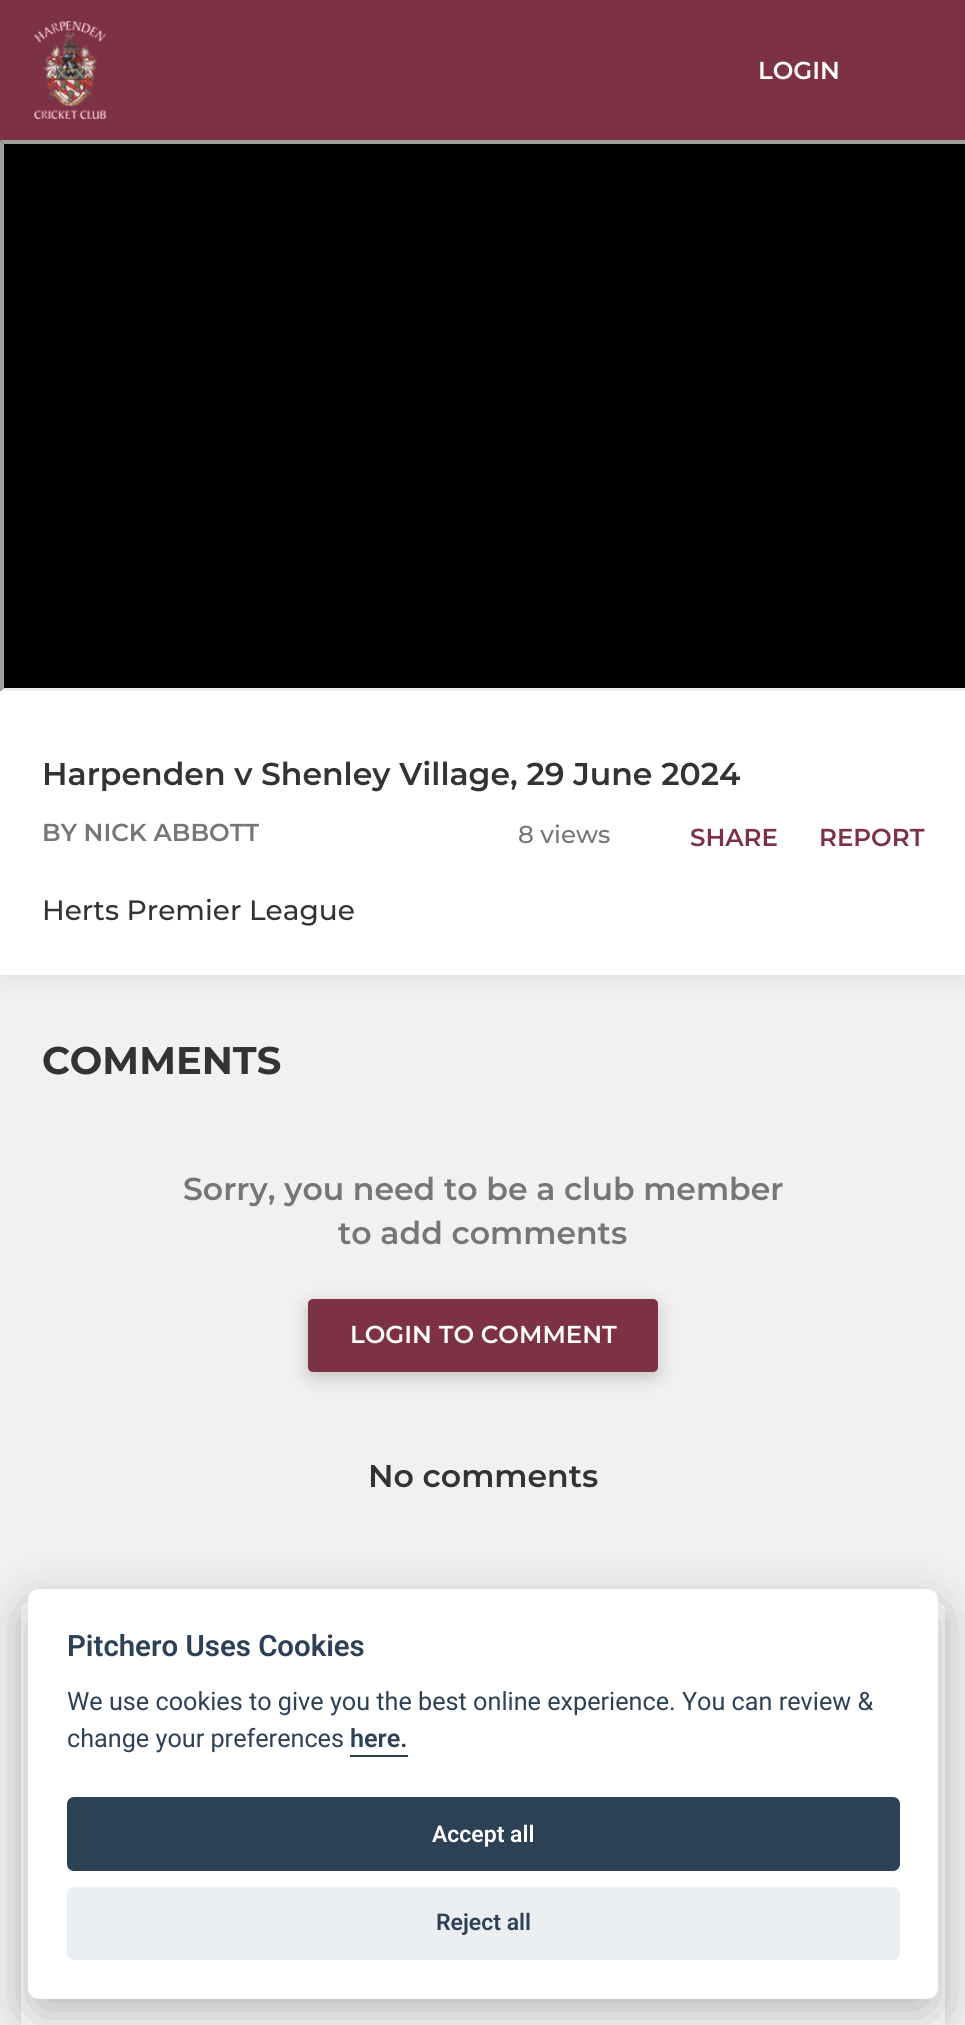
#include <cairo.h>
#include <math.h>
#include <stddef.h>


static void round_rect(cairo_t *cr, double x, double y, double w, double h, double r) {
    cairo_new_sub_path(cr);
    cairo_arc(cr, x + w - r, y + h - r, r, 0, M_PI / 2);
    cairo_arc(cr, x + r, y + h - r, r, M_PI / 2, M_PI);
    cairo_arc(cr, x + r, y + r, r, M_PI, 1.5 * M_PI);
    cairo_arc(cr, x + w - r, y + r, r, 1.5 * M_PI, 2 * M_PI);
    cairo_close_path(cr);
}

static void shadow(cairo_t *cr, double x, double y, double w, double h, double r, double blur, double alpha) {
    cairo_push_group_with_content(cr, CAIRO_CONTENT_ALPHA);
    cairo_set_operator(cr, CAIRO_OPERATOR_SOURCE);
    for (int i = 15; i >= -15 && fmin(w, h) + blur * i / 3 > 0; i -= 2) {
        double e = blur * i / 6;
        cairo_set_source_rgba(cr, 0, 0, 0, alpha * erfc((i - 1) / 8.5) / 2);
        round_rect(cr, x - e, y - e, w + 2 * e, h + 2 * e, fmax(0, fmin(r + e + blur * .6, fmin(w, h) / 2 + e)));
        cairo_fill(cr);
    }
    cairo_pattern_t *soft = cairo_pop_group(cr);
    cairo_mask(cr, soft);
    cairo_pattern_destroy(soft);
}

static void picture(cairo_t *cr, const char *path, double x, double y, double w, double h) {
    cairo_surface_t *image = cairo_image_surface_create_from_png(path);
    cairo_save(cr);
    cairo_set_source_surface(cr, image, x, y);
    cairo_rectangle(cr, x, y, w, h);
    cairo_fill(cr);
    cairo_restore(cr);
    cairo_surface_destroy(image);
}

int main(void) {
    cairo_surface_t *surface = cairo_image_surface_create(CAIRO_FORMAT_RGB24, 965, 2025);
    cairo_t *cr = cairo_create(surface);
    cairo_font_options_t *options = cairo_font_options_create();
    cairo_font_options_set_hint_metrics(options, CAIRO_HINT_METRICS_OFF);
    cairo_font_options_set_hint_style(options, CAIRO_HINT_STYLE_NONE);
    cairo_set_font_options(cr, options);
    cairo_set_miter_limit(cr, 4);
    cairo_set_source_rgb(cr, 0.945, 0.945, 0.945);
    cairo_paint(cr);
    cairo_set_source_rgb(cr, 0.49, 0.192, 0.271);
    cairo_rectangle(cr, 0, 0, 965, 140);
    cairo_fill(cr);
    picture(cr, "img1.png", 34, 21, 73, 98);
    cairo_select_font_face(cr, "Montserrat SemiBold", CAIRO_FONT_SLANT_NORMAL, CAIRO_FONT_WEIGHT_NORMAL);
    cairo_set_font_size(cr, 24.5);
    cairo_set_source_rgb(cr, 1, 1, 1);
    cairo_move_to(cr, 758, 79);
    cairo_show_text(cr, "LOGIN");
    cairo_set_source_rgb(cr, 0, 0, 0);
    shadow(cr, 0, 149, 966, 835, 0, 9, 0.05);
    cairo_set_source_rgb(cr, 1, 1, 1);
    cairo_rectangle(cr, 0, 691, 965, 284);
    cairo_fill(cr);
    cairo_set_source_rgb(cr, 0, 0, 0);
    cairo_rectangle(cr, 0, 140, 965, 551);
    cairo_fill(cr);
    cairo_set_source_rgb(cr, 0.624, 0.624, 0.624);
    cairo_new_path(cr);
    cairo_move_to(cr, 0, 140);
    cairo_line_to(cr, 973, 140);
    cairo_line_to(cr, 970, 144);
    cairo_line_to(cr, 4, 144);
    cairo_close_path(cr);
    cairo_fill(cr);
    cairo_set_source_rgb(cr, 0.933, 0.933, 0.933);
    cairo_new_path(cr);
    cairo_move_to(cr, 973, 691);
    cairo_line_to(cr, 0, 691);
    cairo_line_to(cr, 4, 688);
    cairo_line_to(cr, 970, 688);
    cairo_close_path(cr);
    cairo_fill(cr);
    cairo_set_source_rgb(cr, 0.624, 0.624, 0.624);
    cairo_new_path(cr);
    cairo_move_to(cr, 0, 691);
    cairo_line_to(cr, 0, 140);
    cairo_line_to(cr, 4, 144);
    cairo_line_to(cr, 4, 688);
    cairo_close_path(cr);
    cairo_fill(cr);
    cairo_set_font_size(cr, 31.5);
    cairo_set_source_rgb(cr, 0.2, 0.2, 0.2);
    cairo_move_to(cr, 42, 785);
    cairo_show_text(cr, "Harpenden v Shenley Village, 29 June 2024");
    cairo_set_font_size(cr, 24.5);
    cairo_set_source_rgb(cr, 0.463, 0.463, 0.463);
    cairo_move_to(cr, 42, 841);
    cairo_show_text(cr, "BY NICK ABBOTT");
    cairo_select_font_face(cr, "Montserrat Medium", CAIRO_FONT_SLANT_NORMAL, CAIRO_FONT_WEIGHT_NORMAL);
    cairo_move_to(cr, 518, 843);
    cairo_show_text(cr, "8 views");
    cairo_select_font_face(cr, "Montserrat SemiBold", CAIRO_FONT_SLANT_NORMAL, CAIRO_FONT_WEIGHT_NORMAL);
    cairo_set_source_rgb(cr, 0.49, 0.192, 0.271);
    cairo_move_to(cr, 690, 846);
    cairo_show_text(cr, "SHARE");
    cairo_move_to(cr, 819, 846);
    cairo_show_text(cr, "REPORT");
    cairo_select_font_face(cr, "Montserrat Medium", CAIRO_FONT_SLANT_NORMAL, CAIRO_FONT_WEIGHT_NORMAL);
    cairo_set_font_size(cr, 28);
    cairo_set_source_rgb(cr, 0.2, 0.2, 0.2);
    cairo_move_to(cr, 42, 920);
    cairo_show_text(cr, "Herts Premier League");
    cairo_select_font_face(cr, "Montserrat", CAIRO_FONT_SLANT_NORMAL, CAIRO_FONT_WEIGHT_BOLD);
    cairo_set_font_size(cr, 38.5);
    cairo_move_to(cr, 42, 1074);
    cairo_show_text(cr, "COMMENTS");
    cairo_select_font_face(cr, "Montserrat SemiBold", CAIRO_FONT_SLANT_NORMAL, CAIRO_FONT_WEIGHT_NORMAL);
    cairo_set_font_size(cr, 31.5);
    cairo_set_source_rgb(cr, 0.463, 0.463, 0.463);
    cairo_move_to(cr, 183, 1200);
    cairo_show_text(cr, "Sorry, you need to be a club member");
    cairo_move_to(cr, 338, 1244);
    cairo_show_text(cr, "to add comments");
    cairo_set_source_rgb(cr, 0, 0, 0);
    shadow(cr, 308, 1304, 350, 73, 5, 9, 0.2);
    cairo_set_source_rgb(cr, 0.49, 0.192, 0.271);
    round_rect(cr, 308, 1299, 350, 73, 5);
    cairo_fill(cr);
    cairo_set_font_size(cr, 24.5);
    cairo_set_source_rgb(cr, 1, 1, 1);
    cairo_move_to(cr, 350, 1343);
    cairo_show_text(cr, "LOGIN TO COMMENT");
    cairo_set_font_size(cr, 31.5);
    cairo_set_source_rgb(cr, 0.2, 0.2, 0.2);
    cairo_move_to(cr, 368, 1487);
    cairo_show_text(cr, "No comments");
    cairo_set_source_rgb(cr, 0, 0, 0);
    shadow(cr, 21, 1612, 924, 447, 7, 9, 0.05);
    cairo_set_source_rgb(cr, 1, 1, 1);
    round_rect(cr, 21, 1603, 924, 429, 7);
    cairo_fill(cr);
    cairo_set_source_rgb(cr, 0.008, 0.008, 0.012);
    shadow(cr, 28, 1607, 910, 409, 11, 26, 0.28);
    cairo_set_source_rgb(cr, 1, 1, 1);
    round_rect(cr, 28, 1589, 910, 410, 11);
    cairo_fill(cr);
    cairo_select_font_face(cr, "Roboto SemiBold", CAIRO_FONT_SLANT_NORMAL, CAIRO_FONT_WEIGHT_NORMAL);
    cairo_set_font_size(cr, 29.4);
    cairo_set_source_rgb(cr, 0.176, 0.255, 0.337);
    cairo_move_to(cr, 67, 1656);
    cairo_show_text(cr, "Pitchero Uses Cookies");
    cairo_select_font_face(cr, "Roboto", CAIRO_FONT_SLANT_NORMAL, CAIRO_FONT_WEIGHT_NORMAL);
    cairo_set_font_size(cr, 25.2);
    cairo_move_to(cr, 67, 1710);
    cairo_show_text(cr, "We use cookies to give you the best online experience. You can review &");
    cairo_move_to(cr, 67, 1747);
    cairo_show_text(cr, "change your preferences");
    cairo_select_font_face(cr, "Roboto SemiBold", CAIRO_FONT_SLANT_NORMAL, CAIRO_FONT_WEIGHT_NORMAL);
    cairo_move_to(cr, 350, 1747);
    cairo_show_text(cr, "here.");
    cairo_rectangle(cr, 350, 1755, 58, 2);
    cairo_fill(cr);
    round_rect(cr, 67, 1797, 833, 74, 7);
    cairo_fill(cr);
    cairo_set_font_size(cr, 23);
    cairo_set_source_rgb(cr, 1, 1, 1);
    cairo_move_to(cr, 432, 1842);
    cairo_show_text(cr, "Accept all");
    cairo_set_source_rgb(cr, 0.918, 0.937, 0.949);
    round_rect(cr, 67, 1887, 833, 73, 7);
    cairo_fill(cr);
    cairo_set_source_rgb(cr, 0.176, 0.255, 0.337);
    cairo_move_to(cr, 436, 1930);
    cairo_show_text(cr, "Reject all");
    cairo_surface_write_to_png(surface, "page.png");
    cairo_font_options_destroy(options);
    cairo_destroy(cr);
    cairo_surface_destroy(surface);
    return 0;
}
